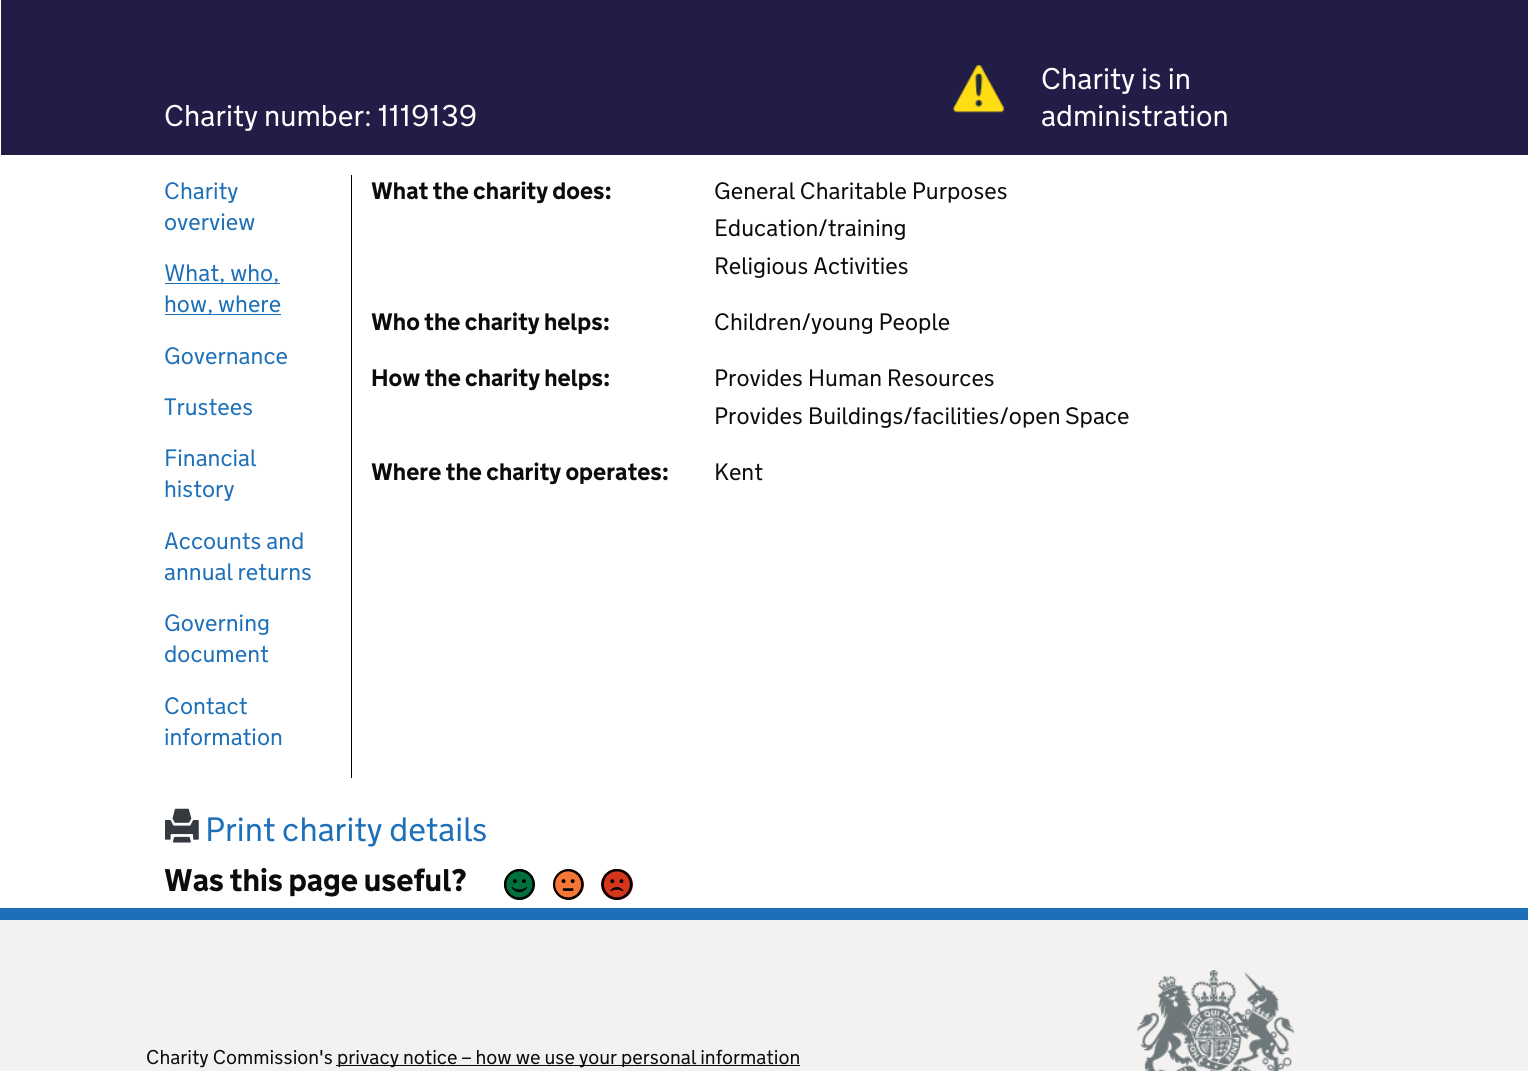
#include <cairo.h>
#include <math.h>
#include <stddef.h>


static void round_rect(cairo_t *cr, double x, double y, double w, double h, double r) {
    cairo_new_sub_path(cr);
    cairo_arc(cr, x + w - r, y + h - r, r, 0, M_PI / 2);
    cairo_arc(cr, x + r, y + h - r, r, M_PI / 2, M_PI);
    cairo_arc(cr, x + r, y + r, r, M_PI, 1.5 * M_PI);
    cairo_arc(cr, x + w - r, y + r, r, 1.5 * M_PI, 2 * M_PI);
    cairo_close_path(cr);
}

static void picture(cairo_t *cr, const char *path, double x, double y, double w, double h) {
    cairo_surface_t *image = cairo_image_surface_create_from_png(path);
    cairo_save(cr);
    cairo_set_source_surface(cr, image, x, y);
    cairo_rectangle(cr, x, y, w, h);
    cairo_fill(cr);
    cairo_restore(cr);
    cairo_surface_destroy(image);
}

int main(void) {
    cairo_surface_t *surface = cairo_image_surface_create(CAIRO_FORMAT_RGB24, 1528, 1071);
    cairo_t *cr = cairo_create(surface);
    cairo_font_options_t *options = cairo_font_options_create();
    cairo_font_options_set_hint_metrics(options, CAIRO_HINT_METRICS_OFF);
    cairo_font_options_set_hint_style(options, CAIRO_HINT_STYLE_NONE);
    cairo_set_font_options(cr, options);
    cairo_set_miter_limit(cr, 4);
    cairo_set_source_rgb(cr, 1, 1, 1);
    cairo_paint(cr);
    cairo_set_source_rgb(cr, 0.129, 0.114, 0.278);
    cairo_rectangle(cr, 1, 0, 1527, 155);
    cairo_fill(cr);
    cairo_select_font_face(cr, "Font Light", CAIRO_FONT_SLANT_NORMAL, CAIRO_FONT_WEIGHT_NORMAL);
    cairo_set_font_size(cr, 30);
    cairo_set_source_rgb(cr, 1, 1, 1);
    cairo_move_to(cr, 164, 126);
    cairo_show_text(cr, "Charity number: 1119139");
    picture(cr, "img1.png", 953, 65, 51, 48);
    cairo_move_to(cr, 1041, 89);
    cairo_show_text(cr, "Charity is in");
    cairo_move_to(cr, 1041, 126);
    cairo_show_text(cr, "administration");
    cairo_set_source_rgb(cr, 0, 0, 0);
    cairo_rectangle(cr, 351, 175, 1, 603);
    cairo_fill(cr);
    cairo_set_font_size(cr, 23.75);
    cairo_set_source_rgb(cr, 0.114, 0.439, 0.722);
    cairo_move_to(cr, 164, 199);
    cairo_show_text(cr, "Charity");
    cairo_move_to(cr, 164, 230);
    cairo_show_text(cr, "overview");
    cairo_rectangle(cr, 165, 283, 115, 1);
    cairo_fill(cr);
    cairo_move_to(cr, 164, 281);
    cairo_show_text(cr, "What, who,");
    cairo_rectangle(cr, 165, 314, 116, 1);
    cairo_fill(cr);
    cairo_move_to(cr, 164, 312);
    cairo_show_text(cr, "how, where");
    cairo_move_to(cr, 164, 364);
    cairo_show_text(cr, "Governance");
    cairo_move_to(cr, 164, 415);
    cairo_show_text(cr, "Trustees");
    cairo_move_to(cr, 164, 466);
    cairo_show_text(cr, "Financial");
    cairo_move_to(cr, 164, 497);
    cairo_show_text(cr, "history");
    cairo_move_to(cr, 164, 549);
    cairo_show_text(cr, "Accounts and");
    cairo_move_to(cr, 164, 580);
    cairo_show_text(cr, "annual returns");
    cairo_move_to(cr, 164, 631);
    cairo_show_text(cr, "Governing");
    cairo_move_to(cr, 164, 662);
    cairo_show_text(cr, "document");
    cairo_move_to(cr, 164, 714);
    cairo_show_text(cr, "Contact");
    cairo_move_to(cr, 164, 745);
    cairo_show_text(cr, "information");
    cairo_select_font_face(cr, "Font", CAIRO_FONT_SLANT_NORMAL, CAIRO_FONT_WEIGHT_BOLD);
    cairo_set_source_rgb(cr, 0.043, 0.047, 0.047);
    cairo_move_to(cr, 371, 199);
    cairo_show_text(cr, "What the charity does:");
    cairo_select_font_face(cr, "Font Light", CAIRO_FONT_SLANT_NORMAL, CAIRO_FONT_WEIGHT_NORMAL);
    cairo_move_to(cr, 714, 199);
    cairo_show_text(cr, "General Charitable Purposes");
    cairo_move_to(cr, 714, 236);
    cairo_show_text(cr, "Education/training");
    cairo_move_to(cr, 714, 274);
    cairo_show_text(cr, "Religious Activities");
    cairo_select_font_face(cr, "Font", CAIRO_FONT_SLANT_NORMAL, CAIRO_FONT_WEIGHT_BOLD);
    cairo_move_to(cr, 371, 330);
    cairo_show_text(cr, "Who the charity helps:");
    cairo_select_font_face(cr, "Font Light", CAIRO_FONT_SLANT_NORMAL, CAIRO_FONT_WEIGHT_NORMAL);
    cairo_move_to(cr, 714, 330);
    cairo_show_text(cr, "Children/young People");
    cairo_select_font_face(cr, "Font", CAIRO_FONT_SLANT_NORMAL, CAIRO_FONT_WEIGHT_BOLD);
    cairo_move_to(cr, 371, 386);
    cairo_show_text(cr, "How the charity helps:");
    cairo_select_font_face(cr, "Font Light", CAIRO_FONT_SLANT_NORMAL, CAIRO_FONT_WEIGHT_NORMAL);
    cairo_move_to(cr, 714, 386);
    cairo_show_text(cr, "Provides Human Resources");
    cairo_move_to(cr, 714, 424);
    cairo_show_text(cr, "Provides Buildings/facilities/open Space");
    cairo_select_font_face(cr, "Font", CAIRO_FONT_SLANT_NORMAL, CAIRO_FONT_WEIGHT_BOLD);
    cairo_move_to(cr, 371, 480);
    cairo_show_text(cr, "Where the charity operates:");
    cairo_select_font_face(cr, "Font Light", CAIRO_FONT_SLANT_NORMAL, CAIRO_FONT_WEIGHT_NORMAL);
    cairo_move_to(cr, 714, 480);
    cairo_show_text(cr, "Kent");
    picture(cr, "img2.png", 165, 808, 34, 35);
    cairo_set_font_size(cr, 33.75);
    cairo_set_source_rgb(cr, 0.114, 0.439, 0.722);
    cairo_move_to(cr, 205, 841);
    cairo_show_text(cr, "Print charity details");
    cairo_select_font_face(cr, "Font", CAIRO_FONT_SLANT_NORMAL, CAIRO_FONT_WEIGHT_BOLD);
    cairo_set_font_size(cr, 31.25);
    cairo_set_source_rgb(cr, 0.043, 0.047, 0.047);
    cairo_move_to(cr, 164, 891);
    cairo_show_text(cr, "Was this page useful?");
    cairo_set_source_rgb(cr, 0, 0.439, 0.235);
    cairo_new_path(cr);
    cairo_arc(cr, 519.5, 884.5, 15.5, 0, 2 * M_PI);
    cairo_fill(cr);
    picture(cr, "img3.png", 504, 869, 31, 31);
    cairo_set_source_rgb(cr, 0.957, 0.467, 0.22);
    cairo_arc(cr, 568.5, 884.5, 15.5, 0, 2 * M_PI);
    cairo_fill(cr);
    picture(cr, "img4.png", 553, 869, 31, 31);
    cairo_set_source_rgb(cr, 0.831, 0.208, 0.11);
    round_rect(cr, 601, 869, 32, 31, 15.5);
    cairo_fill(cr);
    picture(cr, "img5.png", 601, 869, 32, 31);
    cairo_set_source_rgb(cr, 0.953, 0.949, 0.945);
    cairo_rectangle(cr, 0, 920, 1528, 151);
    cairo_fill(cr);
    cairo_set_source_rgb(cr, 0.114, 0.439, 0.722);
    cairo_rectangle(cr, 0, 908, 1528, 12);
    cairo_fill(cr);
    cairo_select_font_face(cr, "Font Light", CAIRO_FONT_SLANT_NORMAL, CAIRO_FONT_WEIGHT_NORMAL);
    cairo_set_font_size(cr, 20);
    cairo_set_source_rgb(cr, 0.043, 0.047, 0.047);
    cairo_move_to(cr, 146, 1064);
    cairo_show_text(cr, "Charity Commission's");
    cairo_rectangle(cr, 336, 1065, 464, 1);
    cairo_fill(cr);
    cairo_move_to(cr, 337, 1064);
    cairo_show_text(cr, "privacy notice – how we use your personal information");
    picture(cr, "img6.png", 1137, 970, 157, 101);
    cairo_surface_write_to_png(surface, "page.png");
    cairo_font_options_destroy(options);
    cairo_destroy(cr);
    cairo_surface_destroy(surface);
    return 0;
}
